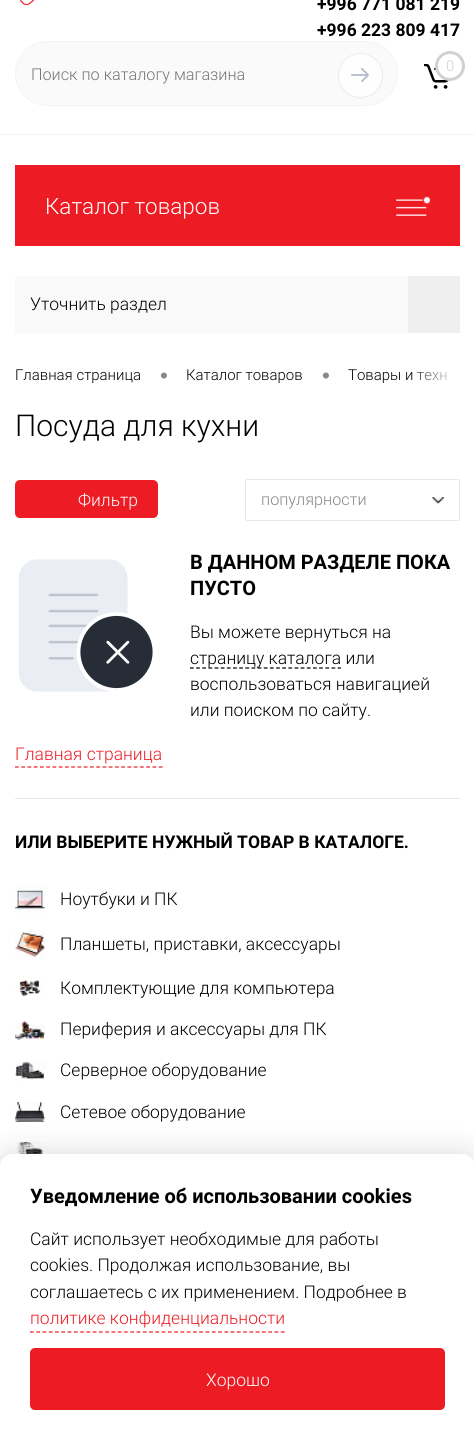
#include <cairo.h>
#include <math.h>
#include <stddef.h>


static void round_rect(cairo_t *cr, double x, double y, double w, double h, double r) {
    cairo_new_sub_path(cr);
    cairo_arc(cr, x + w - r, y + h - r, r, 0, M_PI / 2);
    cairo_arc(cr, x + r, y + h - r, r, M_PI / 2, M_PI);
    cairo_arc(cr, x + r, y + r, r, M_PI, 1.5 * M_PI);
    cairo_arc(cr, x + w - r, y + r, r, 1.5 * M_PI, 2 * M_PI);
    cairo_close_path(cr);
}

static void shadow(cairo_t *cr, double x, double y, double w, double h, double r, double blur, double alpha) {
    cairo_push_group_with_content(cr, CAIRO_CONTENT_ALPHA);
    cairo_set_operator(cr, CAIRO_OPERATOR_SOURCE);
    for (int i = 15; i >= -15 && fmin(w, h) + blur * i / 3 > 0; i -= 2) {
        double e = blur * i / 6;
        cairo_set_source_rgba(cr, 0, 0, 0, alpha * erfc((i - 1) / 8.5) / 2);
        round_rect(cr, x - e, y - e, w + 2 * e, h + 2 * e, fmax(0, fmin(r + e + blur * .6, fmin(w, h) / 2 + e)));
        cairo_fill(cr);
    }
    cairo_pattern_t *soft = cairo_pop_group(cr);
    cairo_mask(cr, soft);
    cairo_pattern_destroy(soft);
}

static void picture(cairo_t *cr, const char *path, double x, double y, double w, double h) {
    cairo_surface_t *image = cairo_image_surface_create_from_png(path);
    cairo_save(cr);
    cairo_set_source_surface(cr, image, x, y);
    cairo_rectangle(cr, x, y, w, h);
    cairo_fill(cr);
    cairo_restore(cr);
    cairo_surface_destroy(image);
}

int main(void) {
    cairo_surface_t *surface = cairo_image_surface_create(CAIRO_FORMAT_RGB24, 474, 1439);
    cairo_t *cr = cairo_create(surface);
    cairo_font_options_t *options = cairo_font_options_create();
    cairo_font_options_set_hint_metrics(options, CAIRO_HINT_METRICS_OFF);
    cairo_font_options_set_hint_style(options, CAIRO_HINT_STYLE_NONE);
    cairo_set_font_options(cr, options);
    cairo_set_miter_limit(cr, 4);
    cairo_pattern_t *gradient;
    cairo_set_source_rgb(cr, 1, 1, 1);
    cairo_paint(cr);
    cairo_set_source_rgb(cr, 0.953, 0.953, 0.953);
    cairo_rectangle(cr, 0, 134, 474, 1);
    cairo_fill(cr);
    picture(cr, "img1.png", 19, 0, 16, 6);
    cairo_select_font_face(cr, "Roboto", CAIRO_FONT_SLANT_NORMAL, CAIRO_FONT_WEIGHT_BOLD);
    cairo_set_font_size(cr, 17.5);
    cairo_set_source_rgb(cr, 0, 0, 0);
    cairo_move_to(cr, 317, 10);
    cairo_show_text(cr, "+996 771 081 219");
    cairo_move_to(cr, 317, 36);
    cairo_show_text(cr, "+996 223 809 417");
    picture(cr, "img2.png", 424, 64, 25, 25);
    cairo_set_source_rgb(cr, 1, 1, 1);
    cairo_arc(cr, 450, 66, 13.5, 0, 2 * M_PI);
    cairo_fill_preserve(cr);
    cairo_set_source_rgb(cr, 0.82, 0.82, 0.82);
    cairo_set_line_width(cr, 3);
    cairo_stroke(cr);
    cairo_select_font_face(cr, "Roboto Light", CAIRO_FONT_SLANT_NORMAL, CAIRO_FONT_WEIGHT_NORMAL);
    cairo_set_font_size(cr, 15);
    cairo_move_to(cr, 446, 71);
    cairo_show_text(cr, "0");
    cairo_set_source_rgb(cr, 0.98, 0.98, 0.98);
    round_rect(cr, 15.5, 41.5, 382, 64, 32);
    cairo_fill_preserve(cr);
    cairo_set_source_rgb(cr, 0.953, 0.953, 0.953);
    cairo_set_line_width(cr, 1);
    cairo_stroke(cr);
    cairo_set_font_size(cr, 16.25);
    cairo_set_source_rgb(cr, 0.459, 0.459, 0.459);
    cairo_move_to(cr, 31, 80);
    cairo_show_text(cr, "Поиск по каталогу магазина");
    picture(cr, "img3.png", 338, 53, 45, 45);
    cairo_set_source_rgb(cr, 0.929, 0.11, 0.141);
    cairo_rectangle(cr, 15, 165, 445, 81);
    cairo_fill(cr);
    cairo_set_font_size(cr, 22.5);
    cairo_set_source_rgb(cr, 1, 1, 1);
    cairo_move_to(cr, 45, 214);
    cairo_show_text(cr, "Каталог товаров");
    picture(cr, "img4.png", 396, 196, 34, 20);
    cairo_set_source_rgb(cr, 0.973, 0.973, 0.973);
    cairo_rectangle(cr, 15, 276, 393, 57);
    cairo_fill(cr);
    cairo_set_font_size(cr, 17.5);
    cairo_set_source_rgb(cr, 0, 0, 0);
    cairo_move_to(cr, 30, 310);
    cairo_show_text(cr, "Уточнить раздел");
    cairo_set_source_rgb(cr, 0.937, 0.937, 0.937);
    cairo_rectangle(cr, 408, 276, 52, 57);
    cairo_fill(cr);
    cairo_set_font_size(cr, 15);
    cairo_set_source_rgb(cr, 0, 0, 0);
    cairo_move_to(cr, 15, 380);
    cairo_show_text(cr, "Главная страница");
    cairo_select_font_face(cr, "Liberation Sans", CAIRO_FONT_SLANT_NORMAL, CAIRO_FONT_WEIGHT_NORMAL);
    cairo_set_font_size(cr, 22.5);
    cairo_set_source_rgb(cr, 0.533, 0.533, 0.533);
    cairo_move_to(cr, 160, 383);
    cairo_show_text(cr, "•");
    cairo_select_font_face(cr, "Roboto Light", CAIRO_FONT_SLANT_NORMAL, CAIRO_FONT_WEIGHT_NORMAL);
    cairo_set_font_size(cr, 15);
    cairo_set_source_rgb(cr, 0, 0, 0);
    cairo_move_to(cr, 186, 380);
    cairo_show_text(cr, "Каталог товаров");
    cairo_select_font_face(cr, "Liberation Sans", CAIRO_FONT_SLANT_NORMAL, CAIRO_FONT_WEIGHT_NORMAL);
    cairo_set_font_size(cr, 22.5);
    cairo_set_source_rgb(cr, 0.533, 0.533, 0.533);
    cairo_move_to(cr, 322, 383);
    cairo_show_text(cr, "•");
    cairo_select_font_face(cr, "Roboto Light", CAIRO_FONT_SLANT_NORMAL, CAIRO_FONT_WEIGHT_NORMAL);
    cairo_set_font_size(cr, 15);
    cairo_set_source_rgb(cr, 0, 0, 0);
    cairo_move_to(cr, 348, 380);
    cairo_show_text(cr, "Товары и техн");
    gradient = cairo_pattern_create_linear(416, 376, 460, 376);
    cairo_pattern_add_color_stop_rgba(gradient, 0, 1, 1, 1, 0.2);
    cairo_pattern_add_color_stop_rgba(gradient, 1, 1, 1, 1, 1);
    cairo_set_source(cr, gradient);
    cairo_pattern_destroy(gradient);
    cairo_rectangle(cr, 417, 371, 30, 10);
    cairo_fill(cr);
    cairo_set_font_size(cr, 30);
    cairo_set_source_rgb(cr, 0, 0, 0);
    cairo_move_to(cr, 15, 436);
    cairo_show_text(cr, "Посуда для кухни");
    cairo_set_source_rgb(cr, 0.929, 0.11, 0.141);
    round_rect(cr, 15, 480, 143, 38, 5);
    cairo_fill(cr);
    cairo_set_font_size(cr, 17.5);
    cairo_set_source_rgb(cr, 1, 1, 1);
    cairo_move_to(cr, 78, 506);
    cairo_show_text(cr, "Фильтр");
    round_rect(cr, 245.5, 479.5, 214, 41, 2);
    cairo_set_source_rgb(cr, 0.906, 0.91, 0.918);
    cairo_stroke(cr);
    cairo_set_font_size(cr, 16.25);
    cairo_set_source_rgb(cr, 0.533, 0.533, 0.533);
    cairo_move_to(cr, 261, 505);
    cairo_show_text(cr, "популярности");
    picture(cr, "img5.png", 432, 497, 12, 7);
    cairo_set_source_rgb(cr, 0.906, 0.91, 0.918);
    cairo_rectangle(cr, 15, 798, 445, 1);
    cairo_fill(cr);
    cairo_select_font_face(cr, "Roboto", CAIRO_FONT_SLANT_NORMAL, CAIRO_FONT_WEIGHT_BOLD);
    cairo_set_font_size(cr, 20);
    cairo_set_source_rgb(cr, 0, 0, 0);
    cairo_move_to(cr, 190, 569);
    cairo_show_text(cr, "В ДАННОМ РАЗДЕЛЕ ПОКА");
    cairo_move_to(cr, 190, 595);
    cairo_show_text(cr, "ПУСТО");
    cairo_select_font_face(cr, "Roboto Light", CAIRO_FONT_SLANT_NORMAL, CAIRO_FONT_WEIGHT_NORMAL);
    cairo_set_font_size(cr, 17.5);
    cairo_move_to(cr, 190, 638);
    cairo_show_text(cr, "Вы можете вернуться на");
    cairo_new_path(cr);
    cairo_move_to(cr, 190, 668);
    cairo_line_to(cr, 341, 668);
    cairo_set_line_width(cr, 1.2);
    cairo_set_dash(cr, (double[]){3.75, 2.4}, 2, 0);
    cairo_stroke(cr);
    cairo_move_to(cr, 190, 664);
    cairo_show_text(cr, "страницу каталога или");
    cairo_move_to(cr, 190, 690);
    cairo_show_text(cr, "воспользоваться навигацией");
    cairo_move_to(cr, 190, 716);
    cairo_show_text(cr, "или поиском по сайту.");
    cairo_set_source_rgb(cr, 0.929, 0.11, 0.141);
    cairo_move_to(cr, 15, 760);
    cairo_show_text(cr, "Главная страница");
    cairo_new_path(cr);
    cairo_move_to(cr, 15, 767);
    cairo_line_to(cr, 162.5, 767);
    cairo_set_dash(cr, (double[]){3.75, 2.5}, 2, 0);
    cairo_stroke(cr);
    picture(cr, "img6.png", 18, 559, 135, 133);
    cairo_select_font_face(cr, "Roboto", CAIRO_FONT_SLANT_NORMAL, CAIRO_FONT_WEIGHT_BOLD);
    cairo_set_source_rgb(cr, 0, 0, 0);
    cairo_move_to(cr, 15, 848);
    cairo_show_text(cr, "ИЛИ ВЫБЕРИТЕ НУЖНЫЙ ТОВАР В КАТАЛОГЕ.");
    picture(cr, "img7.png", 15, 885, 30, 28);
    cairo_select_font_face(cr, "Roboto Light", CAIRO_FONT_SLANT_NORMAL, CAIRO_FONT_WEIGHT_NORMAL);
    cairo_move_to(cr, 60, 905);
    cairo_show_text(cr, "Ноутбуки и ПК");
    picture(cr, "img8.png", 15, 929, 30, 31);
    cairo_move_to(cr, 60, 950);
    cairo_show_text(cr, "Планшеты, приставки, аксессуары");
    picture(cr, "img9.png", 15, 980, 30, 16);
    cairo_move_to(cr, 60, 994);
    cairo_show_text(cr, "Комплектующие для компьютера");
    picture(cr, "img10.png", 15, 1020, 30, 20);
    cairo_move_to(cr, 60, 1035);
    cairo_show_text(cr, "Периферия и аксессуары для ПК");
    picture(cr, "img11.png", 15, 1061, 30, 20);
    cairo_move_to(cr, 60, 1076);
    cairo_show_text(cr, "Серверное оборудование");
    picture(cr, "img12.png", 15, 1102, 30, 20);
    cairo_move_to(cr, 60, 1118);
    cairo_show_text(cr, "Сетевое оборудование");
    picture(cr, "img13.png", 17, 1142, 26, 12);
    cairo_set_source_rgb(cr, 0, 0, 0);
    shadow(cr, 0, 1154, 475, 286, 13, 15.5, 0.15);
    cairo_set_source_rgb(cr, 1, 1, 1);
    cairo_new_path(cr);
    cairo_move_to(cr, 13, 1154);
    cairo_line_to(cr, 462, 1154);
    cairo_curve_to(cr, 469, 1154, 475, 1160, 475, 1167);
    cairo_line_to(cr, 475, 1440);
    cairo_line_to(cr, 0, 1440);
    cairo_line_to(cr, 0, 1167);
    cairo_curve_to(cr, 0, 1160, 6, 1154, 13, 1154);
    cairo_close_path(cr);
    cairo_fill(cr);
    cairo_select_font_face(cr, "Roboto", CAIRO_FONT_SLANT_NORMAL, CAIRO_FONT_WEIGHT_BOLD);
    cairo_set_font_size(cr, 20);
    cairo_set_source_rgb(cr, 0, 0, 0);
    cairo_move_to(cr, 30, 1203);
    cairo_show_text(cr, "Уведомление об использовании cookies");
    cairo_select_font_face(cr, "Roboto Light", CAIRO_FONT_SLANT_NORMAL, CAIRO_FONT_WEIGHT_NORMAL);
    cairo_set_font_size(cr, 17.5);
    cairo_move_to(cr, 30, 1245);
    cairo_show_text(cr, "Сайт использует необходимые для работы");
    cairo_move_to(cr, 30, 1271);
    cairo_show_text(cr, "cookies. Продолжая использование, вы");
    cairo_move_to(cr, 30, 1298);
    cairo_show_text(cr, "соглашаетесь с их применением. Подробнее в");
    cairo_new_path(cr);
    cairo_move_to(cr, 30, 1332);
    cairo_line_to(cr, 285, 1332);
    cairo_set_source_rgb(cr, 0.929, 0.11, 0.141);
    cairo_set_dash(cr, (double[]){3.75, 2.52}, 2, 0);
    cairo_stroke(cr);
    cairo_move_to(cr, 30, 1324);
    cairo_show_text(cr, "политике конфиденциальности");
    round_rect(cr, 30, 1348, 415, 62, 5);
    cairo_fill(cr);
    cairo_set_source_rgb(cr, 1, 1, 1);
    cairo_move_to(cr, 206, 1386);
    cairo_show_text(cr, "Хорошо");
    cairo_surface_write_to_png(surface, "page.png");
    cairo_font_options_destroy(options);
    cairo_destroy(cr);
    cairo_surface_destroy(surface);
    return 0;
}
